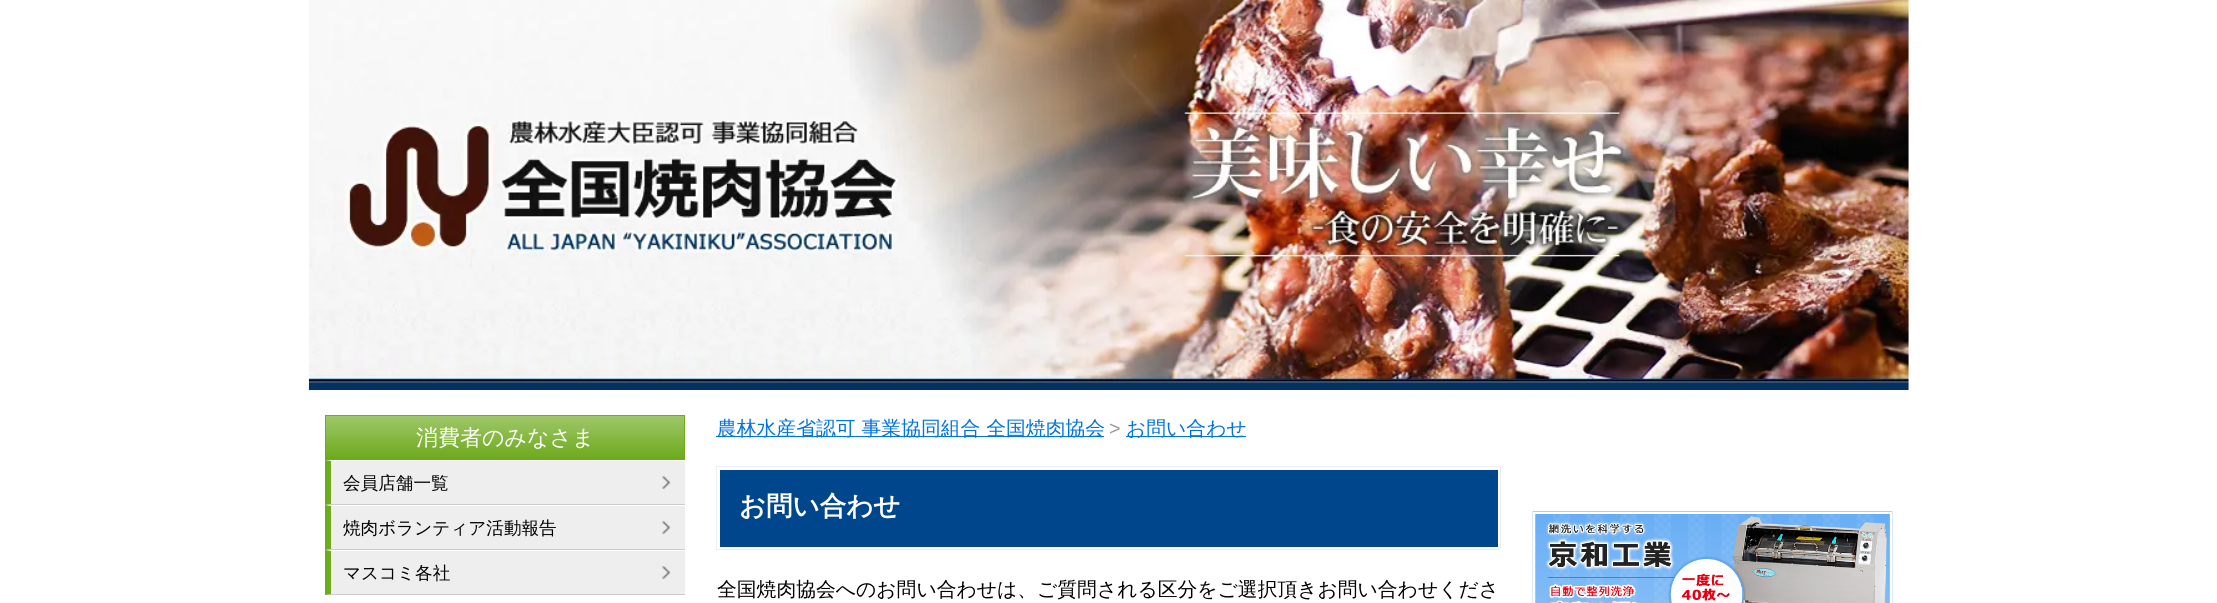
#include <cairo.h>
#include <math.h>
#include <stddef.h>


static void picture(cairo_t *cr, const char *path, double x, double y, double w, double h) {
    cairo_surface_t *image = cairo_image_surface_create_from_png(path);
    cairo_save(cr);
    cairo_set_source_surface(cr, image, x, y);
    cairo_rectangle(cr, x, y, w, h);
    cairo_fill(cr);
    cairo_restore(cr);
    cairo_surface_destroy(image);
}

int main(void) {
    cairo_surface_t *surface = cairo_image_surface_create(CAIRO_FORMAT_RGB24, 2217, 603);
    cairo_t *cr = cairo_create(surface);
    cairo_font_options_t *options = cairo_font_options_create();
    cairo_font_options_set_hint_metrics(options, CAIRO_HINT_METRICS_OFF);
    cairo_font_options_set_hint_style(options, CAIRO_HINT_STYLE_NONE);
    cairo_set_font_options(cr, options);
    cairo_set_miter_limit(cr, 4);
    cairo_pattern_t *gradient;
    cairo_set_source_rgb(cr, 1, 1, 1);
    cairo_paint(cr);
    picture(cr, "img1.png", 308, 0, 1601, 390);
    gradient = cairo_pattern_create_linear(505, 416, 505, 459);
    cairo_pattern_add_color_stop_rgba(gradient, 0, 0.62, 0.78, 0.412, 1);
    cairo_pattern_add_color_stop_rgba(gradient, 1, 0.427, 0.667, 0.11, 1);
    cairo_set_source(cr, gradient);
    cairo_pattern_destroy(gradient);
    cairo_rectangle(cr, 326, 416, 358, 43);
    cairo_fill(cr);
    cairo_rectangle(cr, 325.5, 415.5, 359, 44);
    cairo_set_source_rgb(cr, 0.427, 0.667, 0.11);
    cairo_set_line_width(cr, 1);
    cairo_stroke(cr);
    cairo_select_font_face(cr, "WenQuanYi Zen Hei Medium", CAIRO_FONT_SLANT_NORMAL, CAIRO_FONT_WEIGHT_NORMAL);
    cairo_set_font_size(cr, 22);
    cairo_set_source_rgb(cr, 1, 1, 1);
    cairo_move_to(cr, 416, 445);
    cairo_show_text(cr, "消費者のみなさま");
    cairo_set_source_rgb(cr, 0.933, 0.933, 0.933);
    cairo_rectangle(cr, 325, 460, 360, 135);
    cairo_fill(cr);
    cairo_set_source_rgb(cr, 1, 1, 1);
    cairo_new_path(cr);
    cairo_move_to(cr, 325, 460);
    cairo_line_to(cr, 685, 460);
    cairo_line_to(cr, 685, 461);
    cairo_line_to(cr, 331, 461);
    cairo_close_path(cr);
    cairo_fill(cr);
    cairo_set_source_rgb(cr, 0.8, 0.8, 0.8);
    cairo_new_path(cr);
    cairo_move_to(cr, 685, 505);
    cairo_line_to(cr, 325, 505);
    cairo_line_to(cr, 331, 504);
    cairo_line_to(cr, 685, 504);
    cairo_close_path(cr);
    cairo_fill(cr);
    cairo_set_source_rgb(cr, 0.427, 0.667, 0.11);
    cairo_new_path(cr);
    cairo_move_to(cr, 325, 505);
    cairo_line_to(cr, 325, 460);
    cairo_line_to(cr, 331, 461);
    cairo_line_to(cr, 331, 504);
    cairo_close_path(cr);
    cairo_fill(cr);
    cairo_set_font_size(cr, 17.6);
    cairo_set_source_rgb(cr, 0, 0, 0);
    cairo_move_to(cr, 343, 489);
    cairo_show_text(cr, "会員店舗一覧");
    picture(cr, "img2.png", 662, 476, 9, 13);
    cairo_set_source_rgb(cr, 1, 1, 1);
    cairo_new_path(cr);
    cairo_move_to(cr, 325, 505);
    cairo_line_to(cr, 685, 505);
    cairo_line_to(cr, 685, 506);
    cairo_line_to(cr, 331, 506);
    cairo_close_path(cr);
    cairo_fill(cr);
    cairo_set_source_rgb(cr, 0.8, 0.8, 0.8);
    cairo_new_path(cr);
    cairo_move_to(cr, 685, 550);
    cairo_line_to(cr, 325, 550);
    cairo_line_to(cr, 331, 549);
    cairo_line_to(cr, 685, 549);
    cairo_close_path(cr);
    cairo_fill(cr);
    cairo_set_source_rgb(cr, 0.427, 0.667, 0.11);
    cairo_new_path(cr);
    cairo_move_to(cr, 325, 550);
    cairo_line_to(cr, 325, 505);
    cairo_line_to(cr, 331, 506);
    cairo_line_to(cr, 331, 549);
    cairo_close_path(cr);
    cairo_fill(cr);
    cairo_set_source_rgb(cr, 0, 0, 0);
    cairo_move_to(cr, 343, 534);
    cairo_show_text(cr, "焼肉ボランティア活動報告");
    picture(cr, "img2.png", 662, 521, 9, 13);
    cairo_set_source_rgb(cr, 1, 1, 1);
    cairo_new_path(cr);
    cairo_move_to(cr, 325, 550);
    cairo_line_to(cr, 685, 550);
    cairo_line_to(cr, 685, 551);
    cairo_line_to(cr, 331, 551);
    cairo_close_path(cr);
    cairo_fill(cr);
    cairo_set_source_rgb(cr, 0.8, 0.8, 0.8);
    cairo_new_path(cr);
    cairo_move_to(cr, 685, 595);
    cairo_line_to(cr, 325, 595);
    cairo_line_to(cr, 331, 594);
    cairo_line_to(cr, 685, 594);
    cairo_close_path(cr);
    cairo_fill(cr);
    cairo_set_source_rgb(cr, 0.427, 0.667, 0.11);
    cairo_new_path(cr);
    cairo_move_to(cr, 325, 595);
    cairo_line_to(cr, 325, 550);
    cairo_line_to(cr, 331, 551);
    cairo_line_to(cr, 331, 594);
    cairo_close_path(cr);
    cairo_fill(cr);
    cairo_set_source_rgb(cr, 0, 0, 0);
    cairo_move_to(cr, 343, 579);
    cairo_show_text(cr, "マスコミ各社");
    picture(cr, "img2.png", 662, 566, 9, 13);
    cairo_set_source_rgb(cr, 0, 0.451, 0.898);
    cairo_rectangle(cr, 716, 436, 388, 1);
    cairo_fill(cr);
    cairo_set_font_size(cr, 19.8);
    cairo_move_to(cr, 717, 435);
    cairo_show_text(cr, "農林水産省認可 事業協同組合 全国焼肉協会");
    cairo_select_font_face(cr, "Liberation Sans", CAIRO_FONT_SLANT_NORMAL, CAIRO_FONT_WEIGHT_NORMAL);
    cairo_set_source_rgb(cr, 0.6, 0.6, 0.6);
    cairo_move_to(cr, 1109, 435);
    cairo_show_text(cr, ">");
    cairo_set_source_rgb(cr, 0, 0.451, 0.898);
    cairo_rectangle(cr, 1126, 436, 120, 1);
    cairo_fill(cr);
    cairo_select_font_face(cr, "WenQuanYi Zen Hei Medium", CAIRO_FONT_SLANT_NORMAL, CAIRO_FONT_WEIGHT_NORMAL);
    cairo_move_to(cr, 1126, 435);
    cairo_show_text(cr, "お問い合わせ");
    cairo_rectangle(cr, 716.5, 466.5, 784, 83);
    cairo_set_source_rgb(cr, 0.933, 0.933, 0.933);
    cairo_stroke(cr);
    cairo_set_source_rgb(cr, 0, 0.275, 0.549);
    cairo_rectangle(cr, 720, 470, 778, 77);
    cairo_fill(cr);
    cairo_select_font_face(cr, "WenQuanYi Zen Hei", CAIRO_FONT_SLANT_NORMAL, CAIRO_FONT_WEIGHT_BOLD);
    cairo_set_font_size(cr, 26.5);
    cairo_set_source_rgb(cr, 1, 1, 1);
    cairo_move_to(cr, 739, 515);
    cairo_show_text(cr, "お問い合わせ");
    cairo_select_font_face(cr, "WenQuanYi Zen Hei Medium", CAIRO_FONT_SLANT_NORMAL, CAIRO_FONT_WEIGHT_NORMAL);
    cairo_set_font_size(cr, 19.8);
    cairo_set_source_rgb(cr, 0, 0, 0);
    cairo_move_to(cr, 717, 596);
    cairo_show_text(cr, "全国焼肉協会へのお問い合わせは、ご質問される区分をご選択頂きお問い合わせくださ");
    picture(cr, "img3.png", 1532, 511, 361, 92);
    cairo_surface_write_to_png(surface, "page.png");
    cairo_font_options_destroy(options);
    cairo_destroy(cr);
    cairo_surface_destroy(surface);
    return 0;
}
